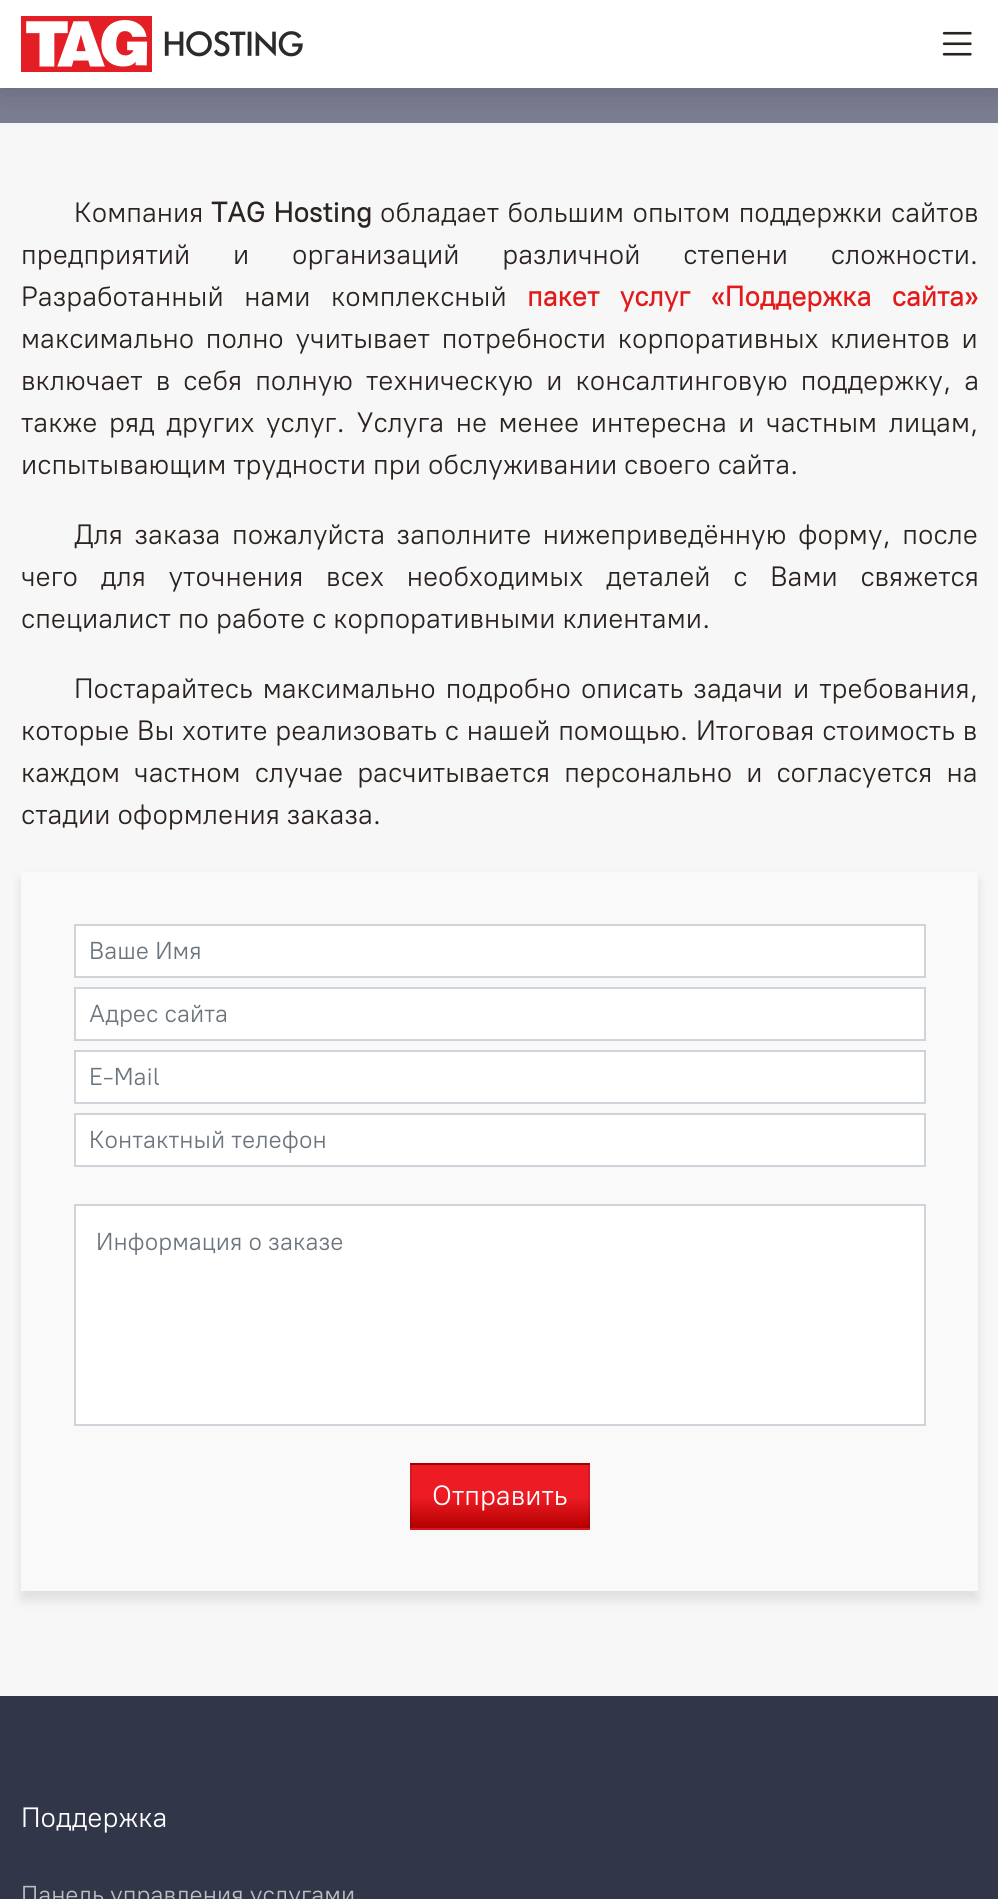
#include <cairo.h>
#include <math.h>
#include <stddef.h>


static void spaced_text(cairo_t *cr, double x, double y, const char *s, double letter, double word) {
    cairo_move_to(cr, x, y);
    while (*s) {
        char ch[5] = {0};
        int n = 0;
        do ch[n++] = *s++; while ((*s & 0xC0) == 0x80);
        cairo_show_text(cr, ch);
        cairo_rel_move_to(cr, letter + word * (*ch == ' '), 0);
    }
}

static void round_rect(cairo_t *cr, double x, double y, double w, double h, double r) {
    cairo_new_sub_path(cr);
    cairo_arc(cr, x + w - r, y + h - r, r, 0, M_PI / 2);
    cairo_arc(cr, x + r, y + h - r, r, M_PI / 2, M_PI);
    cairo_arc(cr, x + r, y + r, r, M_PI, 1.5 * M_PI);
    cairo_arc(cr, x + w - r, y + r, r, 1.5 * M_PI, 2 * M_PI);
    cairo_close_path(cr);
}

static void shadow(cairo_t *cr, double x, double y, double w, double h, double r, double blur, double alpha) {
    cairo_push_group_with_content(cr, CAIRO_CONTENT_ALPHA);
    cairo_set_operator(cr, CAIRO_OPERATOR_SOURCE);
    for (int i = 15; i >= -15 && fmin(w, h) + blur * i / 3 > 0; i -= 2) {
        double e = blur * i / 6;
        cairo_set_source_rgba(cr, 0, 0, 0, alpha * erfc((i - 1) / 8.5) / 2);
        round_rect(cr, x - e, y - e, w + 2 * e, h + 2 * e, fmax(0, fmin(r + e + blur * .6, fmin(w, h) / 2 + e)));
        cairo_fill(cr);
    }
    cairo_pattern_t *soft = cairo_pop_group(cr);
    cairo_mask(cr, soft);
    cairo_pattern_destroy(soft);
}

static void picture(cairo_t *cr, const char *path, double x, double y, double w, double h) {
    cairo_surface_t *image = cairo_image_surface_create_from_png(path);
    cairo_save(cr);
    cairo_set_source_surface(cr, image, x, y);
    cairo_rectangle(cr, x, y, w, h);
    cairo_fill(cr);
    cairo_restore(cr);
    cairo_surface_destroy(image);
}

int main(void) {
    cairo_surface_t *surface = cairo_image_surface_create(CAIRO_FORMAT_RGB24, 998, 1899);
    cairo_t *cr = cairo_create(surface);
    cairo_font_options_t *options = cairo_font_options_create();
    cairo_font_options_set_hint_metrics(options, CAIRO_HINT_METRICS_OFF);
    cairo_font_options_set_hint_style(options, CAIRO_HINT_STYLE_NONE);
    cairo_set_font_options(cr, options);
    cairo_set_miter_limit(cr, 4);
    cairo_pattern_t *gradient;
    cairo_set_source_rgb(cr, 0.965, 0.965, 0.965);
    cairo_paint(cr);
    cairo_set_source_rgb(cr, 0.482, 0.494, 0.573);
    cairo_rectangle(cr, 0, 88, 998, 35);
    cairo_fill(cr);
    cairo_set_source_rgb(cr, 0, 0, 0);
    shadow(cr, 0, 0, 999, 88, 0, 17.5, 0.2);
    cairo_set_source_rgb(cr, 1, 1, 1);
    cairo_rectangle(cr, 0, 0, 998, 88);
    cairo_fill(cr);
    picture(cr, "img1.png", 21, 16, 282, 56);
    picture(cr, "img2.png", 942, 31, 30, 25);
    cairo_select_font_face(cr, "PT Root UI", CAIRO_FONT_SLANT_NORMAL, CAIRO_FONT_WEIGHT_NORMAL);
    cairo_set_font_size(cr, 28);
    cairo_set_source_rgb(cr, 0.169, 0.137, 0.125);
    cairo_move_to(cr, 74, 222);
    cairo_show_text(cr, "Компания");
    cairo_select_font_face(cr, "PT Root UI", CAIRO_FONT_SLANT_NORMAL, CAIRO_FONT_WEIGHT_BOLD);
    spaced_text(cr, 211, 222, "TAG Hosting", 0, 1.5);
    cairo_select_font_face(cr, "PT Root UI", CAIRO_FONT_SLANT_NORMAL, CAIRO_FONT_WEIGHT_NORMAL);
    spaced_text(cr, 380, 222, "обладает большим опытом поддержки сайтов", 0, 1.5);
    spaced_text(cr, 21, 264, "предприятий и организаций различной степени сложности.", 0, 35.75);
    spaced_text(cr, 21, 306, "Разработанный нами комплексный", 0, 13.5);
    cairo_select_font_face(cr, "PT Root UI", CAIRO_FONT_SLANT_NORMAL, CAIRO_FONT_WEIGHT_BOLD);
    cairo_set_source_rgb(cr, 0.886, 0.102, 0.102);
    spaced_text(cr, 527, 306, "пакет услуг «Поддержка сайта»", 0, 13.5);
    cairo_select_font_face(cr, "PT Root UI", CAIRO_FONT_SLANT_NORMAL, CAIRO_FONT_WEIGHT_NORMAL);
    cairo_set_source_rgb(cr, 0.169, 0.137, 0.125);
    spaced_text(cr, 21, 348, "максимально полно учитывает потребности корпоративных клиентов и", 0, 4.75);
    spaced_text(cr, 21, 390, "включает в себя полную техническую и консалтинговую поддержку, а", 0, 6);
    spaced_text(cr, 21, 432, "также ряд других услуг. Услуга не менее интересна и частным лицам,", 0, 4.5);
    cairo_move_to(cr, 21, 474);
    cairo_show_text(cr, "испытывающим трудности при обслуживании своего сайта.");
    spaced_text(cr, 74, 544, "Для заказа пожалуйста заполните нижеприведённую форму, после", 0, 4.5);
    spaced_text(cr, 21, 586, "чего для уточнения всех необходимых деталей с Вами свяжется", 0, 15.75);
    cairo_move_to(cr, 21, 628);
    cairo_show_text(cr, "специалист по работе с корпоративными клиентами.");
    spaced_text(cr, 74, 698, "Постарайтесь максимально подробно описать задачи и требования,", 0, 3);
    spaced_text(cr, 21, 740, "которые Вы хотите реализовать с нашей помощью. Итоговая стоимость в", 0, 0.75);
    spaced_text(cr, 21, 782, "каждом частном случае расчитывается персонально и согласуется на", 0, 7);
    cairo_move_to(cr, 21, 824);
    cairo_show_text(cr, "стадии оформления заказа.");
    cairo_save(cr);
    cairo_set_fill_rule(cr, CAIRO_FILL_RULE_EVEN_ODD);
    cairo_new_path(cr);
    cairo_move_to(cr, 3, 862);
    cairo_line_to(cr, 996, 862);
    cairo_line_to(cr, 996, 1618);
    cairo_line_to(cr, 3, 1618);
    cairo_close_path(cr);
    cairo_move_to(cr, 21, 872);
    cairo_line_to(cr, 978, 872);
    cairo_line_to(cr, 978, 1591);
    cairo_line_to(cr, 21, 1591);
    cairo_close_path(cr);
    cairo_clip(cr);
    cairo_set_source_rgb(cr, 0, 0, 0);
    shadow(cr, 21, 880, 957, 720, 0, 5.5, 0.1);
    cairo_restore(cr);
    cairo_set_source_rgba(cr, 0.98, 0.98, 0.98, 0.9);
    cairo_rectangle(cr, 21, 872, 957, 719);
    cairo_fill(cr);
    cairo_set_source_rgb(cr, 1, 1, 1);
    cairo_rectangle(cr, 75, 925, 850, 52);
    cairo_fill_preserve(cr);
    cairo_set_source_rgb(cr, 0.808, 0.831, 0.855);
    cairo_stroke(cr);
    cairo_set_font_size(cr, 24.5);
    cairo_set_source_rgb(cr, 0.424, 0.459, 0.49);
    cairo_move_to(cr, 89, 959);
    cairo_show_text(cr, "Ваше Имя");
    cairo_set_source_rgb(cr, 1, 1, 1);
    cairo_rectangle(cr, 75, 988, 850, 52);
    cairo_fill_preserve(cr);
    cairo_set_source_rgb(cr, 0.808, 0.831, 0.855);
    cairo_stroke(cr);
    cairo_set_source_rgb(cr, 0.424, 0.459, 0.49);
    cairo_move_to(cr, 89, 1022);
    cairo_show_text(cr, "Адрес сайта");
    cairo_set_source_rgb(cr, 1, 1, 1);
    cairo_rectangle(cr, 75, 1051, 850, 52);
    cairo_fill_preserve(cr);
    cairo_set_source_rgb(cr, 0.808, 0.831, 0.855);
    cairo_stroke(cr);
    cairo_set_source_rgb(cr, 0.424, 0.459, 0.49);
    cairo_move_to(cr, 89, 1085);
    cairo_show_text(cr, "E-Mail");
    cairo_set_source_rgb(cr, 1, 1, 1);
    cairo_rectangle(cr, 75, 1114, 850, 52);
    cairo_fill_preserve(cr);
    cairo_set_source_rgb(cr, 0.808, 0.831, 0.855);
    cairo_stroke(cr);
    cairo_set_source_rgb(cr, 0.424, 0.459, 0.49);
    cairo_move_to(cr, 89, 1148);
    cairo_show_text(cr, "Контактный телефон");
    cairo_set_source_rgb(cr, 1, 1, 1);
    cairo_rectangle(cr, 75, 1205, 850, 220);
    cairo_fill_preserve(cr);
    cairo_set_source_rgb(cr, 0.808, 0.831, 0.855);
    cairo_stroke(cr);
    cairo_set_source_rgb(cr, 0.424, 0.459, 0.49);
    cairo_move_to(cr, 96, 1250);
    cairo_show_text(cr, "Информация о заказе");
    gradient = cairo_pattern_create_linear(500, 1465, 500, 1402);
    cairo_pattern_add_color_stop_rgba(gradient, 0, 0.706, 0, 0, 1);
    cairo_pattern_add_color_stop_rgba(gradient, 0.5, 0.929, 0.11, 0.141, 1);
    cairo_set_source(cr, gradient);
    cairo_pattern_destroy(gradient);
    cairo_rectangle(cr, 410, 1463, 180, 2);
    cairo_fill(cr);
    gradient = cairo_pattern_create_linear(500, 1528, 500, 1465);
    cairo_pattern_add_color_stop_rgba(gradient, 0, 0.706, 0, 0, 1);
    cairo_pattern_add_color_stop_rgba(gradient, 0.5, 0.929, 0.11, 0.141, 1);
    cairo_set_source(cr, gradient);
    cairo_pattern_destroy(gradient);
    cairo_rectangle(cr, 410, 1465, 180, 63);
    cairo_fill(cr);
    gradient = cairo_pattern_create_linear(500, 1591, 500, 1528);
    cairo_pattern_add_color_stop_rgba(gradient, 0, 0.706, 0, 0, 1);
    cairo_pattern_add_color_stop_rgba(gradient, 0.5, 0.929, 0.11, 0.141, 1);
    cairo_set_source(cr, gradient);
    cairo_pattern_destroy(gradient);
    cairo_rectangle(cr, 410, 1528, 180, 2);
    cairo_fill(cr);
    cairo_rectangle(cr, 411, 1464, 178, 65);
    cairo_set_source_rgba(cr, 0, 0, 0, 0.1);
    cairo_stroke(cr);
    cairo_set_font_size(cr, 28);
    cairo_set_source_rgb(cr, 1, 1, 1);
    cairo_move_to(cr, 432, 1505);
    cairo_show_text(cr, "Отправить");
    cairo_set_source_rgb(cr, 0.196, 0.212, 0.286);
    cairo_rectangle(cr, 0, 1696, 998, 203);
    cairo_fill(cr);
    cairo_set_source_rgb(cr, 1, 1, 1);
    cairo_move_to(cr, 21, 1827);
    cairo_show_text(cr, "Поддержка");
    cairo_set_font_size(cr, 24.5);
    cairo_set_source_rgb(cr, 0.737, 0.745, 0.753);
    cairo_move_to(cr, 21, 1903);
    cairo_show_text(cr, "Панель управления услугами");
    cairo_surface_write_to_png(surface, "page.png");
    cairo_font_options_destroy(options);
    cairo_destroy(cr);
    cairo_surface_destroy(surface);
    return 0;
}
